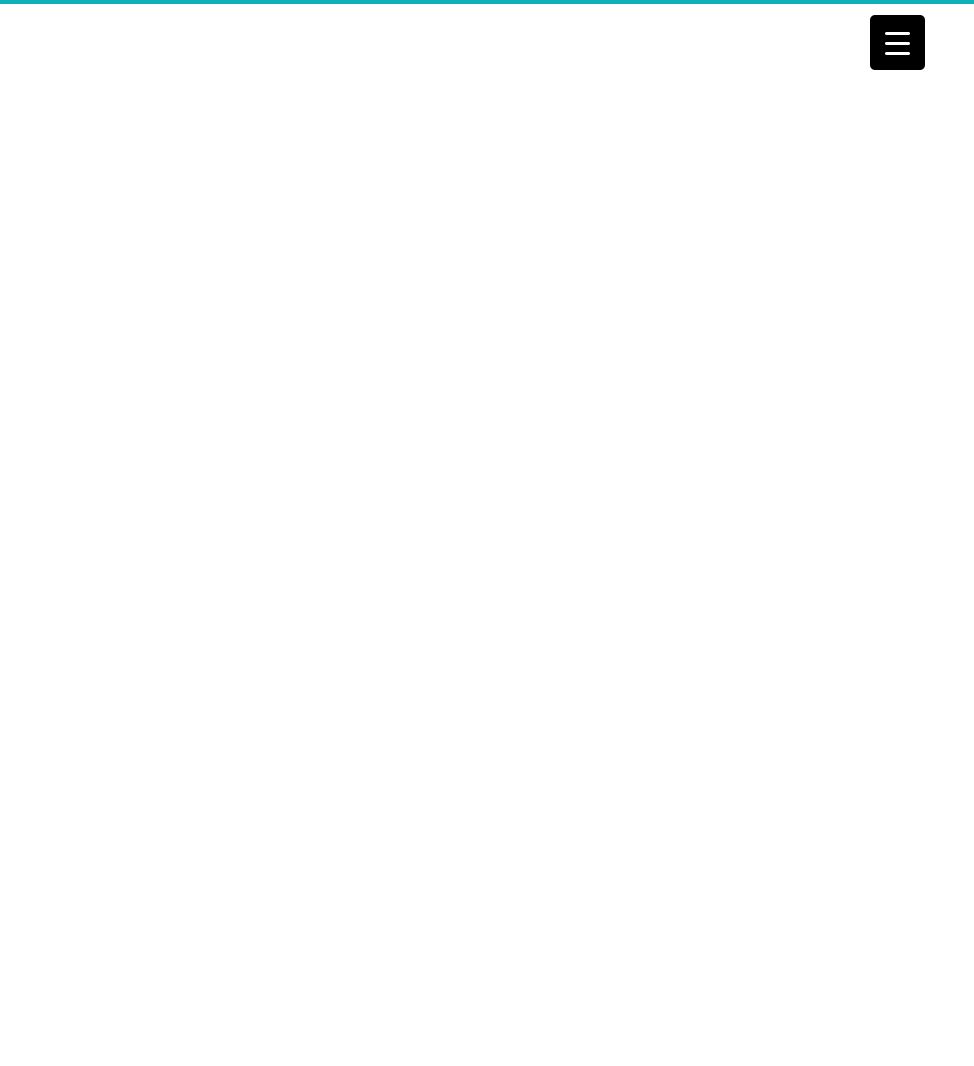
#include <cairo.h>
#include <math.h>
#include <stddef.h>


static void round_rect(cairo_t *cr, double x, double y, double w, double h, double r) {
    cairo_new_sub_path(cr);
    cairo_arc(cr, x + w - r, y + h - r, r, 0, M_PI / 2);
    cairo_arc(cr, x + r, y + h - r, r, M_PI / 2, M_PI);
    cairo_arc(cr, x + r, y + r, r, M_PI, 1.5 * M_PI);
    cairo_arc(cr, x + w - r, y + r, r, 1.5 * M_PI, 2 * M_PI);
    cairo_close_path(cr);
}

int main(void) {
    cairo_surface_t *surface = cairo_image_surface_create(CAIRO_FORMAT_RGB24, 974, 1066);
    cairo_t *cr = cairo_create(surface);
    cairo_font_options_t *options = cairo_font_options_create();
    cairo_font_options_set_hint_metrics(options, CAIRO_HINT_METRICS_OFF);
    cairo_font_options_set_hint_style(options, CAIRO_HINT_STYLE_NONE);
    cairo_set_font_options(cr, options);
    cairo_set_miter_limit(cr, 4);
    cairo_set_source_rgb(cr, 1, 1, 1);
    cairo_paint(cr);
    cairo_set_source_rgb(cr, 0.063, 0.69, 0.722);
    cairo_rectangle(cr, 0, 0, 974, 4);
    cairo_fill(cr);
    cairo_set_source_rgb(cr, 0, 0, 0);
    round_rect(cr, 870, 15, 55, 55, 5);
    cairo_fill(cr);
    cairo_set_source_rgb(cr, 1, 1, 1);
    round_rect(cr, 885, 42, 25, 3, 1.5);
    cairo_fill(cr);
    round_rect(cr, 885, 32, 25, 3, 1.5);
    cairo_fill(cr);
    round_rect(cr, 885, 52, 25, 3, 1.5);
    cairo_fill(cr);
    cairo_surface_write_to_png(surface, "page.png");
    cairo_font_options_destroy(options);
    cairo_destroy(cr);
    cairo_surface_destroy(surface);
    return 0;
}
